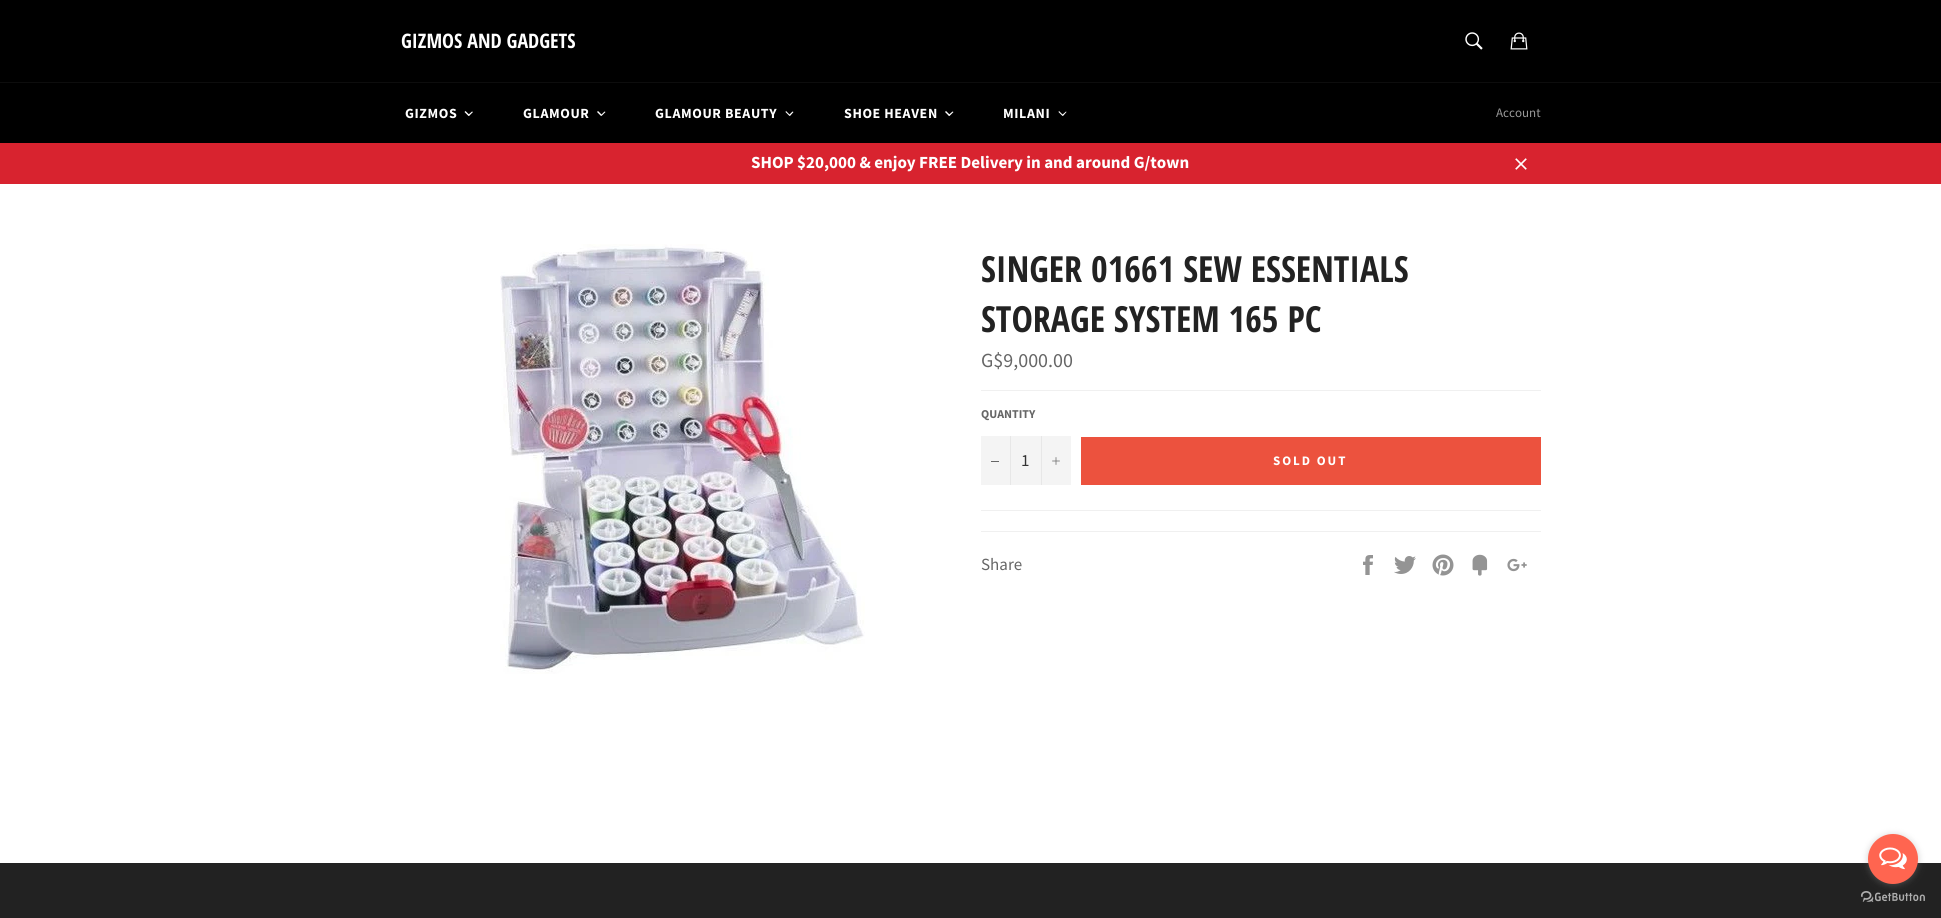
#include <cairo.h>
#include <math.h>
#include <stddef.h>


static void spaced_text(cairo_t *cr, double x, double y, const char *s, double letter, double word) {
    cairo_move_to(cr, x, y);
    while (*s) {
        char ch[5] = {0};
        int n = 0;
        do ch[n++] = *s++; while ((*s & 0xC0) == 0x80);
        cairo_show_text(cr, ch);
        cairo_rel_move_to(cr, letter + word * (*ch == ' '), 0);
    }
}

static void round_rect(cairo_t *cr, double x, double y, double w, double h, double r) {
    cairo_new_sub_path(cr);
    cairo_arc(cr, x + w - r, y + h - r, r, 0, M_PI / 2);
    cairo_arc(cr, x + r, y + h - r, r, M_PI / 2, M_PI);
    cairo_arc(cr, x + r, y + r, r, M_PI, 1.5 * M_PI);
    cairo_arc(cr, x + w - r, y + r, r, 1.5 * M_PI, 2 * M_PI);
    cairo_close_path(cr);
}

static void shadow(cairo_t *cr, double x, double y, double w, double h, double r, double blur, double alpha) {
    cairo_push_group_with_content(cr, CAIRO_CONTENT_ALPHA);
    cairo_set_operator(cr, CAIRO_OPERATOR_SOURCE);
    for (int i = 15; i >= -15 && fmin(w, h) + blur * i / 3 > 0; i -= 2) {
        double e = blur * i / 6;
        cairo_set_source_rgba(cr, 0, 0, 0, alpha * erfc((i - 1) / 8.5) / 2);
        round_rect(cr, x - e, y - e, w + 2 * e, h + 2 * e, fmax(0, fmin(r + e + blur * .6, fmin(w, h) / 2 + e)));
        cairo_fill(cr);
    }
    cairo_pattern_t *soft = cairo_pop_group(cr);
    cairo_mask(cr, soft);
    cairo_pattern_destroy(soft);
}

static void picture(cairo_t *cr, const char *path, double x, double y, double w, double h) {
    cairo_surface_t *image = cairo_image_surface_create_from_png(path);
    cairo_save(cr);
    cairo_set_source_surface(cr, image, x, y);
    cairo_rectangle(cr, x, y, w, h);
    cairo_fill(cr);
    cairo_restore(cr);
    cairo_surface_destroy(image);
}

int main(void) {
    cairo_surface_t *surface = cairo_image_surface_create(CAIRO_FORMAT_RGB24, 1941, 918);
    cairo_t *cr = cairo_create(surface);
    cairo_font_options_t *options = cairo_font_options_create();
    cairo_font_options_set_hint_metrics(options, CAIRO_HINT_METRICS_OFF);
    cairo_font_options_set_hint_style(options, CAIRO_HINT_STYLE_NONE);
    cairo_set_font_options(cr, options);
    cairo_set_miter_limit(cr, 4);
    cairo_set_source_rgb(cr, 1, 1, 1);
    cairo_paint(cr);
    cairo_set_source_rgb(cr, 0, 0, 0);
    cairo_rectangle(cr, 0, 0, 1941, 82);
    cairo_fill(cr);
    cairo_select_font_face(cr, "Open Sans Condensed", CAIRO_FONT_SLANT_NORMAL, CAIRO_FONT_WEIGHT_BOLD);
    cairo_set_font_size(cr, 20);
    cairo_set_source_rgb(cr, 1, 1, 1);
    cairo_move_to(cr, 401, 48);
    cairo_show_text(cr, "GIZMOS AND GADGETS");
    picture(cr, "img1.png", 1465, 32, 18, 18);
    picture(cr, "img2.png", 1510, 32, 18, 18);
    cairo_set_source_rgb(cr, 0, 0, 0);
    cairo_rectangle(cr, 0, 83, 1941, 60);
    cairo_fill(cr);
    cairo_set_source_rgb(cr, 0.051, 0.051, 0.051);
    cairo_rectangle(cr, 0, 82, 1941, 1);
    cairo_fill(cr);
    cairo_select_font_face(cr, "Source Sans Pro", CAIRO_FONT_SLANT_NORMAL, CAIRO_FONT_WEIGHT_BOLD);
    cairo_set_font_size(cr, 14);
    cairo_set_source_rgb(cr, 1, 1, 1);
    spaced_text(cr, 405, 118, "GIZMOS", 0.6, 0);
    cairo_new_path(cr);
    cairo_move_to(cr, 472, 111.5);
    cairo_line_to(cr, 473, 112);
    cairo_line_to(cr, 469, 116);
    cairo_line_to(cr, 468, 115);
    cairo_close_path(cr);
    cairo_fill(cr);
    cairo_new_path(cr);
    cairo_move_to(cr, 465.5, 111);
    cairo_line_to(cr, 469.5, 115);
    cairo_line_to(cr, 468.5, 116);
    cairo_line_to(cr, 464.5, 112);
    cairo_close_path(cr);
    cairo_fill(cr);
    spaced_text(cr, 523, 118, "GLAMOUR", 0.6, 0);
    cairo_new_path(cr);
    cairo_move_to(cr, 604.5, 111.5);
    cairo_line_to(cr, 605.5, 112);
    cairo_line_to(cr, 601.5, 116);
    cairo_line_to(cr, 601, 115);
    cairo_close_path(cr);
    cairo_fill(cr);
    cairo_new_path(cr);
    cairo_move_to(cr, 598, 111);
    cairo_line_to(cr, 602, 115);
    cairo_line_to(cr, 601, 116);
    cairo_line_to(cr, 597, 112);
    cairo_close_path(cr);
    cairo_fill(cr);
    spaced_text(cr, 655, 118, "GLAMOUR BEAUTY", 0.6, 0);
    cairo_new_path(cr);
    cairo_move_to(cr, 792.5, 111.5);
    cairo_line_to(cr, 793.5, 112);
    cairo_line_to(cr, 790, 116);
    cairo_line_to(cr, 789, 115);
    cairo_close_path(cr);
    cairo_fill(cr);
    cairo_new_path(cr);
    cairo_move_to(cr, 786, 111);
    cairo_line_to(cr, 790, 115);
    cairo_line_to(cr, 789.5, 116);
    cairo_line_to(cr, 785.5, 112);
    cairo_close_path(cr);
    cairo_fill(cr);
    spaced_text(cr, 844, 118, "SHOE HEAVEN", 0.6, 0);
    cairo_new_path(cr);
    cairo_move_to(cr, 952.5, 111.5);
    cairo_line_to(cr, 953.5, 112);
    cairo_line_to(cr, 949.5, 116);
    cairo_line_to(cr, 948.5, 115);
    cairo_close_path(cr);
    cairo_fill(cr);
    cairo_new_path(cr);
    cairo_move_to(cr, 946, 111);
    cairo_line_to(cr, 950, 115);
    cairo_line_to(cr, 949, 116);
    cairo_line_to(cr, 945, 112);
    cairo_close_path(cr);
    cairo_fill(cr);
    spaced_text(cr, 1003, 118, "MILANI", 0.6, 0);
    cairo_new_path(cr);
    cairo_move_to(cr, 1066, 111.5);
    cairo_line_to(cr, 1066.5, 112);
    cairo_line_to(cr, 1063, 116);
    cairo_line_to(cr, 1062, 115);
    cairo_close_path(cr);
    cairo_fill(cr);
    cairo_new_path(cr);
    cairo_move_to(cr, 1059, 111);
    cairo_line_to(cr, 1063, 115);
    cairo_line_to(cr, 1062.5, 116);
    cairo_line_to(cr, 1058.5, 112);
    cairo_close_path(cr);
    cairo_fill(cr);
    cairo_select_font_face(cr, "Source Sans Pro", CAIRO_FONT_SLANT_NORMAL, CAIRO_FONT_WEIGHT_NORMAL);
    cairo_set_font_size(cr, 13);
    cairo_set_source_rgb(cr, 0.6, 0.6, 0.6);
    cairo_move_to(cr, 1496, 117);
    cairo_show_text(cr, "Account");
    cairo_set_source_rgb(cr, 0.847, 0.137, 0.184);
    cairo_rectangle(cr, 0, 143, 1941, 41);
    cairo_fill(cr);
    cairo_select_font_face(cr, "Source Sans Pro", CAIRO_FONT_SLANT_NORMAL, CAIRO_FONT_WEIGHT_BOLD);
    cairo_set_font_size(cr, 17);
    cairo_set_source_rgb(cr, 1, 1, 1);
    cairo_move_to(cr, 751, 168);
    cairo_show_text(cr, "SHOP $20,000 & enjoy FREE Delivery in and around G/town");
    picture(cr, "img3.png", 1515, 158, 12, 12);
    picture(cr, "img4.png", 500, 244, 365, 430);
    cairo_select_font_face(cr, "Open Sans Condensed", CAIRO_FONT_SLANT_NORMAL, CAIRO_FONT_WEIGHT_BOLD);
    cairo_set_font_size(cr, 36);
    cairo_set_source_rgb(cr, 0.133, 0.133, 0.133);
    cairo_move_to(cr, 981, 282);
    cairo_show_text(cr, "SINGER 01661 SEW ESSENTIALS");
    cairo_move_to(cr, 981, 332);
    cairo_show_text(cr, "STORAGE SYSTEM 165 PC");
    cairo_select_font_face(cr, "Source Sans Pro", CAIRO_FONT_SLANT_NORMAL, CAIRO_FONT_WEIGHT_NORMAL);
    cairo_set_font_size(cr, 20);
    cairo_set_source_rgb(cr, 0.4, 0.4, 0.4);
    cairo_move_to(cr, 981, 367);
    cairo_show_text(cr, "G$9,000.00");
    cairo_set_source_rgb(cr, 0.941, 0.941, 0.941);
    cairo_rectangle(cr, 981, 390, 560, 1);
    cairo_fill(cr);
    cairo_select_font_face(cr, "Source Sans Pro", CAIRO_FONT_SLANT_NORMAL, CAIRO_FONT_WEIGHT_BOLD);
    cairo_set_font_size(cr, 12);
    cairo_set_source_rgb(cr, 0.4, 0.4, 0.4);
    cairo_move_to(cr, 981, 418);
    cairo_show_text(cr, "QUANTITY");
    cairo_set_source_rgb(cr, 0.957, 0.957, 0.957);
    cairo_rectangle(cr, 981, 436, 90, 49);
    cairo_fill(cr);
    cairo_set_source_rgb(cr, 0.906, 0.906, 0.906);
    cairo_rectangle(cr, 1010, 436, 1, 49);
    cairo_fill(cr);
    cairo_set_source_rgb(cr, 0.4, 0.4, 0.4);
    cairo_rectangle(cr, 991, 461, 8, 1);
    cairo_fill(cr);
    cairo_select_font_face(cr, "Source Sans Pro", CAIRO_FONT_SLANT_NORMAL, CAIRO_FONT_WEIGHT_NORMAL);
    cairo_set_font_size(cr, 17);
    cairo_set_source_rgb(cr, 0.2, 0.2, 0.2);
    cairo_move_to(cr, 1021, 466);
    cairo_show_text(cr, "1");
    cairo_set_source_rgb(cr, 0.906, 0.906, 0.906);
    cairo_rectangle(cr, 1041, 436, 1, 49);
    cairo_fill(cr);
    picture(cr, "img5.png", 1052, 457, 8, 8);
    cairo_set_source_rgb(cr, 0.925, 0.322, 0.243);
    cairo_rectangle(cr, 1081, 437, 460, 48);
    cairo_fill(cr);
    cairo_select_font_face(cr, "Source Sans Pro", CAIRO_FONT_SLANT_NORMAL, CAIRO_FONT_WEIGHT_BOLD);
    cairo_set_font_size(cr, 13);
    cairo_set_source_rgb(cr, 1, 1, 1);
    spaced_text(cr, 1273, 465, "SOLD OUT", 2, 0);
    cairo_set_source_rgb(cr, 0.941, 0.941, 0.941);
    cairo_rectangle(cr, 981, 510, 560, 1);
    cairo_fill(cr);
    cairo_rectangle(cr, 981, 531, 560, 1);
    cairo_fill(cr);
    cairo_select_font_face(cr, "Source Sans Pro", CAIRO_FONT_SLANT_NORMAL, CAIRO_FONT_WEIGHT_NORMAL);
    cairo_set_font_size(cr, 17);
    cairo_set_source_rgb(cr, 0.4, 0.4, 0.4);
    cairo_move_to(cr, 981, 570);
    cairo_show_text(cr, "Share");
    picture(cr, "img6.png", 1363, 555, 10, 20);
    picture(cr, "img7.png", 1394, 556, 22, 18);
    picture(cr, "img8.png", 1432, 554, 22, 22);
    picture(cr, "img9.png", 1472, 554, 16, 22);
    picture(cr, "img10.png", 1507, 558, 20, 14);
    cairo_set_source_rgb(cr, 0.133, 0.133, 0.133);
    cairo_rectangle(cr, 0, 863, 1941, 55);
    cairo_fill(cr);
    picture(cr, "img12.png", 1861, 891, 64, 11);
    cairo_set_source_rgb(cr, 0.533, 0.533, 0.533);
    shadow(cr, 1868, 835, 50, 50, 25, 3.5, 0.4);
    cairo_set_source_rgb(cr, 1, 0.396, 0.314);
    cairo_arc(cr, 1893, 859, 25, 0, 2 * M_PI);
    cairo_fill(cr);
    picture(cr, "img11.png", 1879, 847, 28, 23);
    cairo_surface_write_to_png(surface, "page.png");
    cairo_font_options_destroy(options);
    cairo_destroy(cr);
    cairo_surface_destroy(surface);
    return 0;
}
